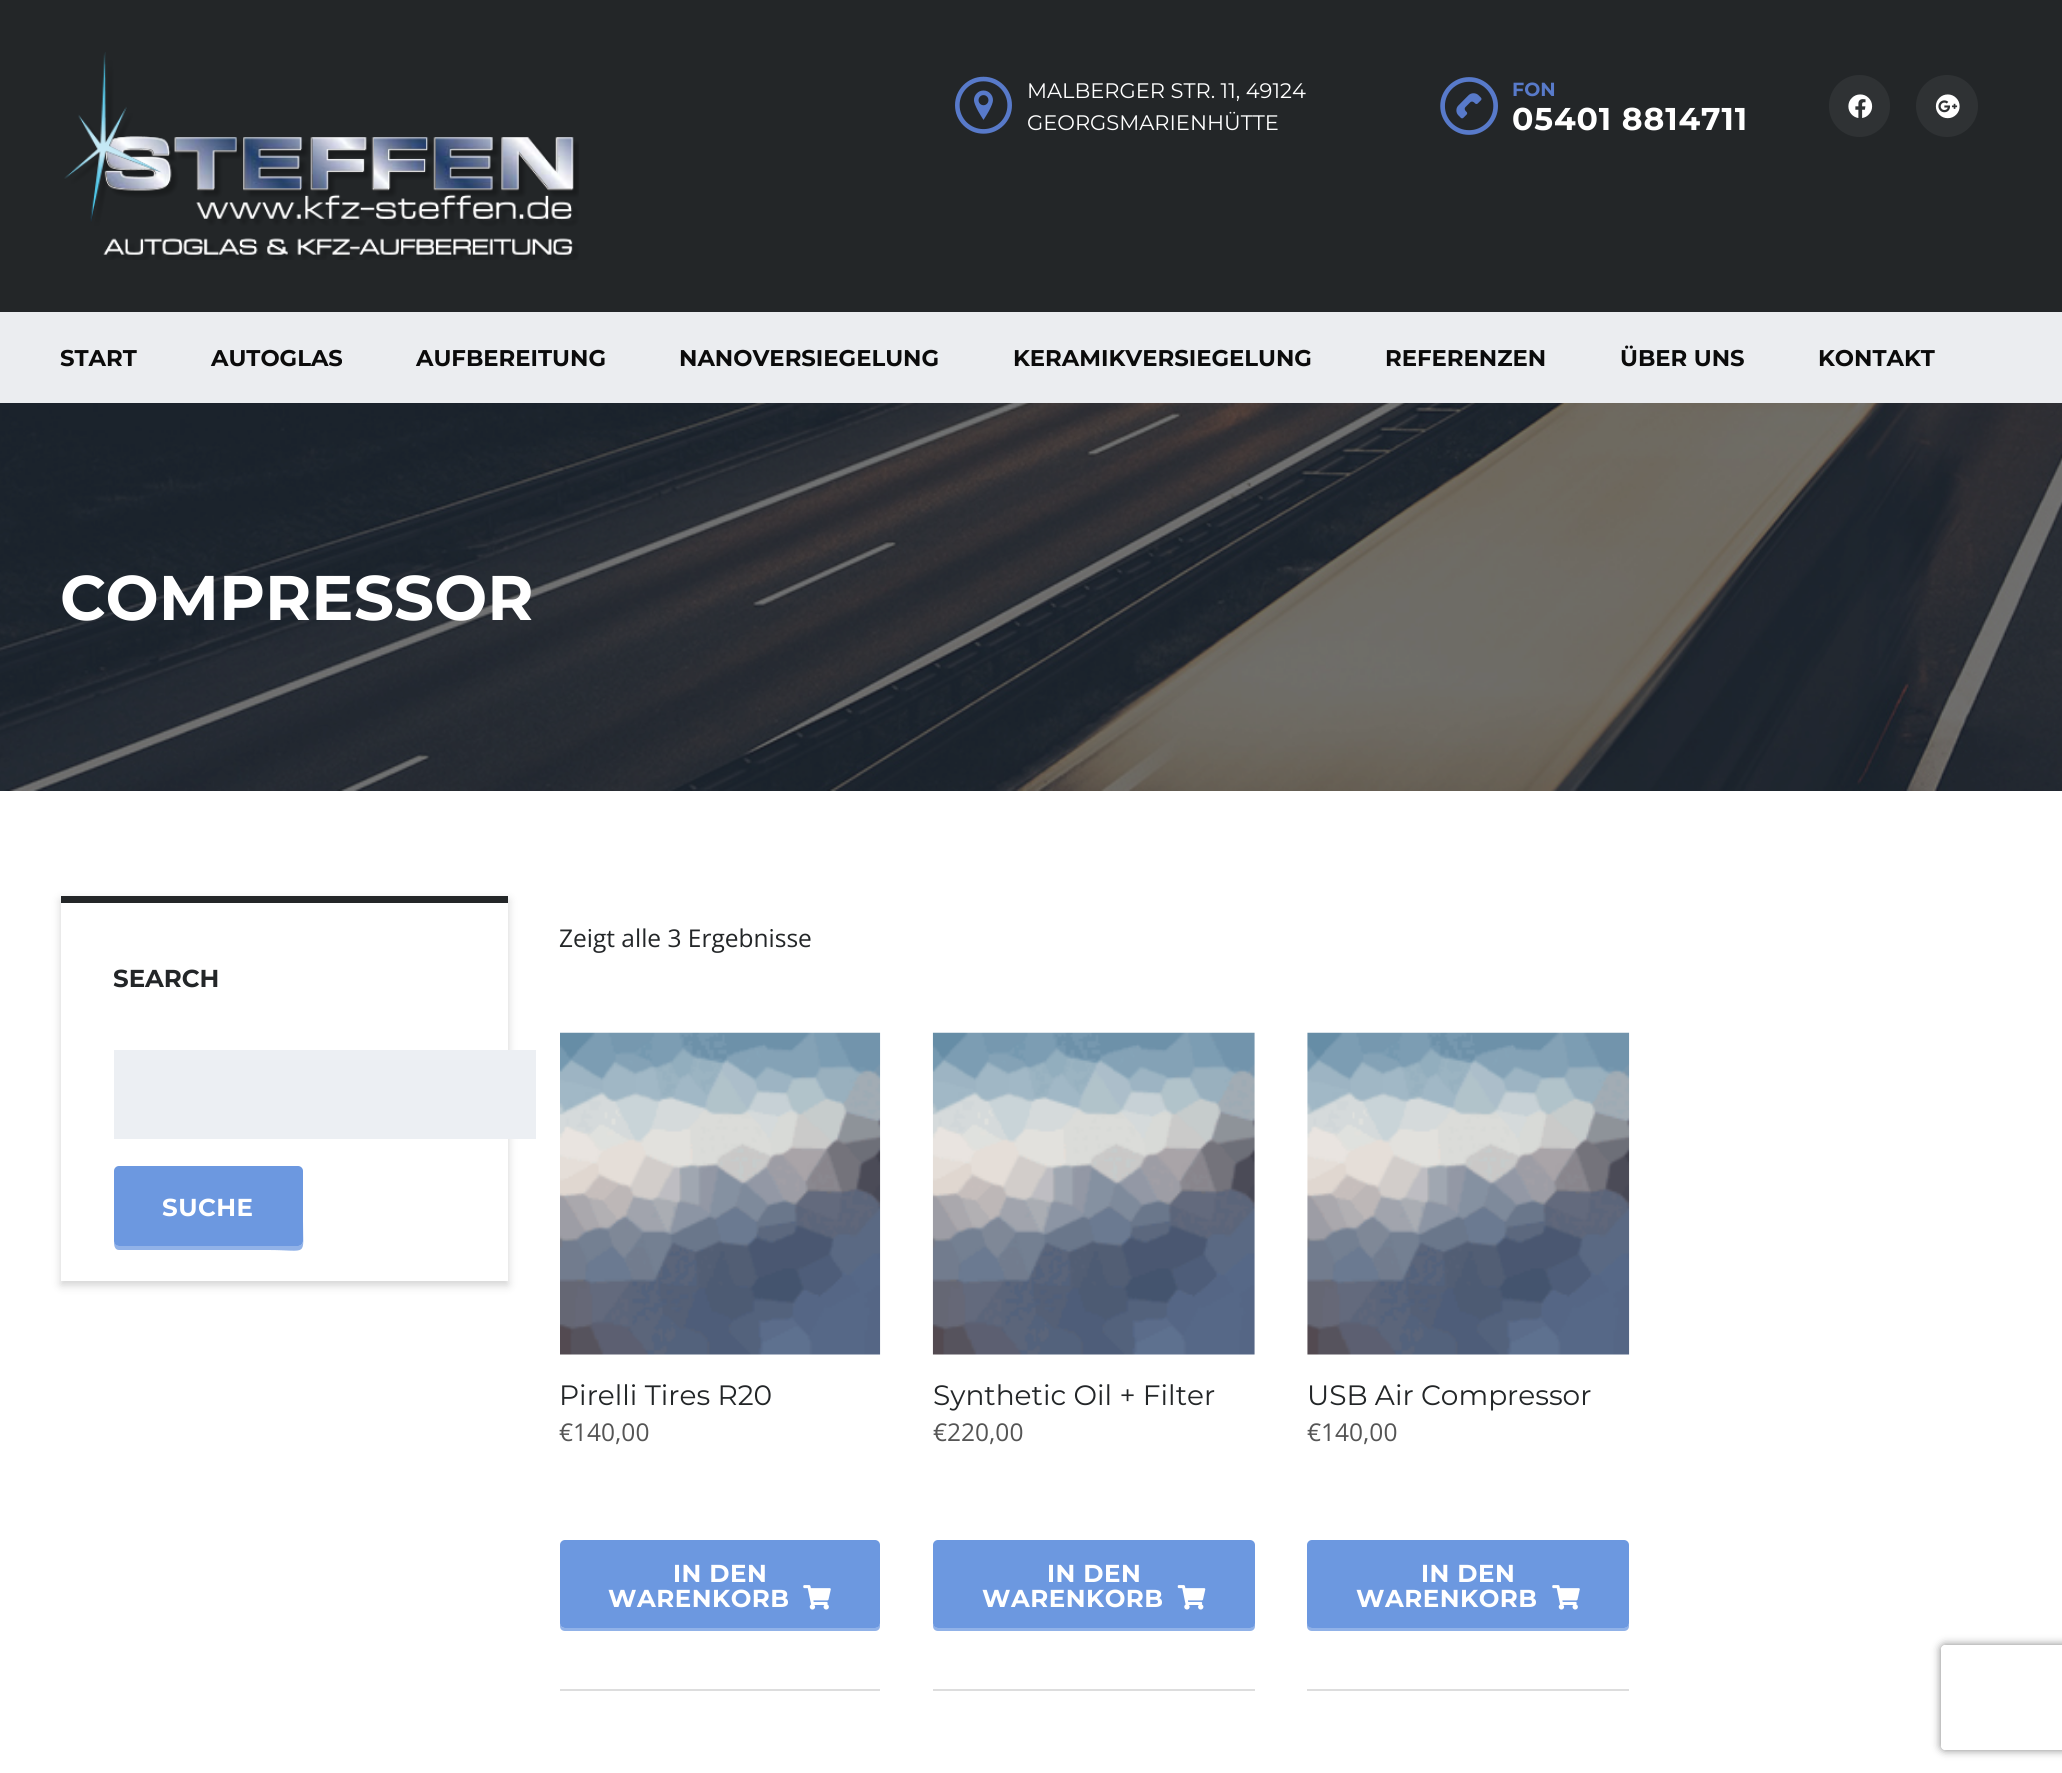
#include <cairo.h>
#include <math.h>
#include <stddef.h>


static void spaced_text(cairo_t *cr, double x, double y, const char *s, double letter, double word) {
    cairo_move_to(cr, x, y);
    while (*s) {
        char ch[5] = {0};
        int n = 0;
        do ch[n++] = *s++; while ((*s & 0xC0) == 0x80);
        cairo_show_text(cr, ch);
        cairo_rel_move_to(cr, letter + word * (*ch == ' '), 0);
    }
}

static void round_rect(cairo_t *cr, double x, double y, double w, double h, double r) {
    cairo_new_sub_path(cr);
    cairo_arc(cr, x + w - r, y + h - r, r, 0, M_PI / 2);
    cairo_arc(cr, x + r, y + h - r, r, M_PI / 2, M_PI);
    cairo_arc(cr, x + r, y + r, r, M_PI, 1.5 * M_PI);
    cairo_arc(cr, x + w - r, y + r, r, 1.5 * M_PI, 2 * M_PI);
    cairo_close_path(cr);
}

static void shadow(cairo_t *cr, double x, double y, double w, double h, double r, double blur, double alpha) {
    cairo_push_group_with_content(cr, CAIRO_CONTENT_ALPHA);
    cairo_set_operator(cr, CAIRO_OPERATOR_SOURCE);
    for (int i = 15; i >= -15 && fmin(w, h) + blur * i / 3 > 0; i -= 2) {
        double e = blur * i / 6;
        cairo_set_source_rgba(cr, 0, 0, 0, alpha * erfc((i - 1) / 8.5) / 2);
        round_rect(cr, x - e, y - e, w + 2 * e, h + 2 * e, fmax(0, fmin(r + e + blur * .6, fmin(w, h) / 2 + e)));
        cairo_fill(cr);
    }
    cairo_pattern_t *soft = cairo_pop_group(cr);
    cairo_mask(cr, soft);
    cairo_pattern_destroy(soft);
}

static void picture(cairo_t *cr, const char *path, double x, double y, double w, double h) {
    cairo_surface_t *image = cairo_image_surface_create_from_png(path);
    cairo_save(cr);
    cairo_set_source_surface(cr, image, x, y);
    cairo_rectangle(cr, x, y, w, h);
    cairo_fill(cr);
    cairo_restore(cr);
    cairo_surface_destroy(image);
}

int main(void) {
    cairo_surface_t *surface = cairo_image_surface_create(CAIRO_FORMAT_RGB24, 2062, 1773);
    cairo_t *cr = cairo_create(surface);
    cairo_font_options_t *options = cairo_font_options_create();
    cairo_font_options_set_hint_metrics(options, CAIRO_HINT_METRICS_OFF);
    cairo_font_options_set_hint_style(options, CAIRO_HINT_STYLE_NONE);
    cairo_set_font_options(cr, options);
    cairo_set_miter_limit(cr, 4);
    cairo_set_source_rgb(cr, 1, 1, 1);
    cairo_paint(cr);
    cairo_set_source_rgb(cr, 0.137, 0.149, 0.157);
    cairo_rectangle(cr, 0, 0, 2062, 312);
    cairo_fill(cr);
    picture(cr, "img1.png", 64, 52, 515, 208);
    picture(cr, "img2.png", 955, 76, 57, 58);
    cairo_select_font_face(cr, "Montserrat", CAIRO_FONT_SLANT_NORMAL, CAIRO_FONT_WEIGHT_NORMAL);
    cairo_set_font_size(cr, 21);
    cairo_set_source_rgb(cr, 1, 1, 1);
    cairo_move_to(cr, 1027, 98);
    cairo_show_text(cr, "MALBERGER STR. 11, 49124");
    cairo_move_to(cr, 1027, 130);
    cairo_show_text(cr, "GEORGSMARIENHÜTTE");
    picture(cr, "img3.png", 1440, 77, 58, 58);
    cairo_select_font_face(cr, "Montserrat", CAIRO_FONT_SLANT_NORMAL, CAIRO_FONT_WEIGHT_BOLD);
    cairo_set_font_size(cr, 19);
    cairo_set_source_rgb(cr, 0.345, 0.478, 0.792);
    cairo_move_to(cr, 1512, 96);
    cairo_show_text(cr, "FON");
    cairo_set_font_size(cr, 31.5);
    cairo_set_source_rgb(cr, 1, 1, 1);
    spaced_text(cr, 1512, 130, "05401 8814711", 0.9, 0);
    cairo_set_source_rgb(cr, 0.184, 0.196, 0.204);
    round_rect(cr, 1829, 75, 61, 62, 30.5);
    cairo_fill(cr);
    picture(cr, "img4.png", 1848, 94, 25, 24);
    cairo_arc(cr, 1947, 106, 31, 0, 2 * M_PI);
    cairo_fill(cr);
    picture(cr, "img5.png", 1935, 94, 25, 25);
    cairo_set_source_rgb(cr, 0.918, 0.929, 0.941);
    cairo_rectangle(cr, 0, 312, 2062, 91);
    cairo_fill(cr);
    cairo_set_font_size(cr, 22.75);
    cairo_set_source_rgb(cr, 0.043, 0.043, 0.043);
    cairo_move_to(cr, 60, 366);
    cairo_show_text(cr, "START");
    cairo_move_to(cr, 211, 366);
    cairo_show_text(cr, "AUTOGLAS");
    cairo_move_to(cr, 416, 366);
    cairo_show_text(cr, "AUFBEREITUNG");
    cairo_move_to(cr, 679, 366);
    cairo_show_text(cr, "NANOVERSIEGELUNG");
    cairo_move_to(cr, 1013, 366);
    cairo_show_text(cr, "KERAMIKVERSIEGELUNG");
    cairo_move_to(cr, 1385, 366);
    cairo_show_text(cr, "REFERENZEN");
    cairo_move_to(cr, 1620, 366);
    cairo_show_text(cr, "ÜBER UNS");
    cairo_move_to(cr, 1818, 366);
    cairo_show_text(cr, "KONTAKT");
    picture(cr, "img6.png", 0, 403, 2062, 388);
    cairo_set_font_size(cr, 63);
    cairo_set_source_rgb(cr, 1, 1, 1);
    cairo_move_to(cr, 60, 620);
    cairo_show_text(cr, "COMPRESSOR");
    cairo_save(cr);
    cairo_set_fill_rule(cr, CAIRO_FILL_RULE_EVEN_ODD);
    cairo_new_path(cr);
    cairo_move_to(cr, 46, 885);
    cairo_line_to(cr, 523, 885);
    cairo_line_to(cr, 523, 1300);
    cairo_line_to(cr, 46, 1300);
    cairo_close_path(cr);
    cairo_move_to(cr, 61, 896);
    cairo_line_to(cr, 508, 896);
    cairo_line_to(cr, 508, 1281);
    cairo_line_to(cr, 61, 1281);
    cairo_close_path(cr);
    cairo_clip(cr);
    cairo_set_source_rgb(cr, 0, 0, 0);
    shadow(cr, 61, 900, 447, 385, 0, 4.5, 0.18);
    cairo_restore(cr);
    cairo_set_source_rgb(cr, 0.137, 0.149, 0.157);
    cairo_rectangle(cr, 61, 896, 447, 7);
    cairo_fill(cr);
    cairo_set_font_size(cr, 24.5);
    cairo_move_to(cr, 113, 987);
    cairo_show_text(cr, "SEARCH");
    cairo_set_source_rgb(cr, 0.925, 0.937, 0.953);
    cairo_rectangle(cr, 114, 1050, 422, 89);
    cairo_fill(cr);
    cairo_set_source_rgb(cr, 0.569, 0.698, 0.91);
    cairo_new_path(cr);
    cairo_move_to(cr, 114, 1242);
    cairo_curve_to(cr, 114, 1246, 115, 1250, 119, 1250);
    cairo_line_to(cr, 268, 1250);
    cairo_curve_to(cr, 309, 1250, 303, 1258, 303, 1221);
    cairo_line_to(cr, 303, 1172);
    cairo_line_to(cr, 303, 1241);
    cairo_curve_to(cr, 303, 1244, 300, 1246, 298, 1246);
    cairo_line_to(cr, 119, 1246);
    cairo_curve_to(cr, 117, 1246, 115, 1244, 114, 1242);
    cairo_close_path(cr);
    cairo_fill(cr);
    cairo_set_source_rgb(cr, 0.424, 0.596, 0.878);
    round_rect(cr, 114, 1166, 189, 80, 5);
    cairo_fill(cr);
    cairo_set_source_rgb(cr, 1, 1, 1);
    spaced_text(cr, 162, 1216, "SUCHE", 0.5, 0);
    cairo_select_font_face(cr, "Open Sans", CAIRO_FONT_SLANT_NORMAL, CAIRO_FONT_WEIGHT_NORMAL);
    cairo_set_source_rgb(cr, 0.137, 0.149, 0.157);
    cairo_move_to(cr, 559, 947);
    cairo_show_text(cr, "Zeigt alle 3 Ergebnisse");
    cairo_set_source_rgb(cr, 0.867, 0.867, 0.867);
    cairo_rectangle(cr, 560, 1689, 320, 2);
    cairo_fill(cr);
    picture(cr, "img7.png", 560, 1032, 321, 323);
    cairo_select_font_face(cr, "Montserrat", CAIRO_FONT_SLANT_NORMAL, CAIRO_FONT_WEIGHT_NORMAL);
    cairo_set_font_size(cr, 28);
    cairo_set_source_rgb(cr, 0.137, 0.149, 0.157);
    cairo_move_to(cr, 559, 1405);
    cairo_show_text(cr, "Pirelli Tires R20");
    cairo_select_font_face(cr, "Open Sans", CAIRO_FONT_SLANT_NORMAL, CAIRO_FONT_WEIGHT_NORMAL);
    cairo_set_font_size(cr, 24.5);
    cairo_set_source_rgb(cr, 0.333, 0.333, 0.333);
    cairo_move_to(cr, 559, 1441);
    cairo_show_text(cr, "€140,00");
    cairo_set_source_rgb(cr, 0.569, 0.698, 0.91);
    cairo_new_path(cr);
    cairo_move_to(cr, 560, 1622);
    cairo_line_to(cr, 560, 1626);
    cairo_curve_to(cr, 560, 1629, 562, 1631, 565, 1631);
    cairo_line_to(cr, 875, 1631);
    cairo_curve_to(cr, 878, 1631, 880, 1629, 880, 1626);
    cairo_line_to(cr, 880, 1624);
    cairo_curve_to(cr, 879, 1626, 877, 1628, 875, 1628);
    cairo_line_to(cr, 565, 1628);
    cairo_curve_to(cr, 562, 1628, 560, 1625, 560, 1622);
    cairo_close_path(cr);
    cairo_fill(cr);
    cairo_set_source_rgb(cr, 0.424, 0.596, 0.878);
    round_rect(cr, 560, 1540, 320, 88, 5);
    cairo_fill(cr);
    cairo_select_font_face(cr, "Montserrat", CAIRO_FONT_SLANT_NORMAL, CAIRO_FONT_WEIGHT_BOLD);
    cairo_set_source_rgb(cr, 1, 1, 1);
    spaced_text(cr, 673, 1582, "IN DEN", 0.5, 0);
    spaced_text(cr, 608, 1607, "WARENKORB", 0.5, 0);
    picture(cr, "img8.png", 803, 1585, 28, 25);
    cairo_set_source_rgb(cr, 0.867, 0.867, 0.867);
    cairo_rectangle(cr, 933, 1689, 322, 2);
    cairo_fill(cr);
    picture(cr, "img9.png", 932, 1032, 323, 323);
    cairo_select_font_face(cr, "Montserrat", CAIRO_FONT_SLANT_NORMAL, CAIRO_FONT_WEIGHT_NORMAL);
    cairo_set_font_size(cr, 28);
    cairo_set_source_rgb(cr, 0.137, 0.149, 0.157);
    cairo_move_to(cr, 933, 1405);
    cairo_show_text(cr, "Synthetic Oil + Filter");
    cairo_select_font_face(cr, "Open Sans", CAIRO_FONT_SLANT_NORMAL, CAIRO_FONT_WEIGHT_NORMAL);
    cairo_set_font_size(cr, 24.5);
    cairo_set_source_rgb(cr, 0.333, 0.333, 0.333);
    cairo_move_to(cr, 933, 1441);
    cairo_show_text(cr, "€220,00");
    cairo_set_source_rgb(cr, 0.569, 0.698, 0.91);
    cairo_new_path(cr);
    cairo_move_to(cr, 933, 1624);
    cairo_line_to(cr, 933, 1626);
    cairo_curve_to(cr, 933, 1629, 935, 1631, 938, 1631);
    cairo_line_to(cr, 1250, 1631);
    cairo_curve_to(cr, 1253, 1631, 1255, 1629, 1255, 1626);
    cairo_line_to(cr, 1255, 1547);
    cairo_line_to(cr, 1255, 1622);
    cairo_curve_to(cr, 1255, 1625, 1252, 1628, 1250, 1628);
    cairo_line_to(cr, 938, 1628);
    cairo_curve_to(cr, 936, 1628, 934, 1626, 933, 1624);
    cairo_close_path(cr);
    cairo_fill(cr);
    cairo_set_source_rgb(cr, 0.424, 0.596, 0.878);
    round_rect(cr, 933, 1540, 322, 88, 5);
    cairo_fill(cr);
    cairo_select_font_face(cr, "Montserrat", CAIRO_FONT_SLANT_NORMAL, CAIRO_FONT_WEIGHT_BOLD);
    cairo_set_source_rgb(cr, 1, 1, 1);
    spaced_text(cr, 1047, 1582, "IN DEN", 0.5, 0);
    spaced_text(cr, 982, 1607, "WARENKORB", 0.5, 0);
    picture(cr, "img10.png", 1177, 1585, 29, 25);
    cairo_set_source_rgb(cr, 0.867, 0.867, 0.867);
    cairo_rectangle(cr, 1307, 1689, 322, 2);
    cairo_fill(cr);
    picture(cr, "img11.png", 1307, 1032, 323, 323);
    cairo_select_font_face(cr, "Montserrat", CAIRO_FONT_SLANT_NORMAL, CAIRO_FONT_WEIGHT_NORMAL);
    cairo_set_font_size(cr, 28);
    cairo_set_source_rgb(cr, 0.137, 0.149, 0.157);
    cairo_move_to(cr, 1307, 1405);
    cairo_show_text(cr, "USB Air Compressor");
    cairo_select_font_face(cr, "Open Sans", CAIRO_FONT_SLANT_NORMAL, CAIRO_FONT_WEIGHT_NORMAL);
    cairo_set_font_size(cr, 24.5);
    cairo_set_source_rgb(cr, 0.333, 0.333, 0.333);
    cairo_move_to(cr, 1307, 1441);
    cairo_show_text(cr, "€140,00");
    cairo_set_source_rgb(cr, 0.569, 0.698, 0.91);
    cairo_new_path(cr);
    cairo_move_to(cr, 1307, 1547);
    cairo_line_to(cr, 1307, 1626);
    cairo_curve_to(cr, 1307, 1629, 1309, 1631, 1312, 1631);
    cairo_line_to(cr, 1624, 1631);
    cairo_curve_to(cr, 1627, 1631, 1629, 1629, 1629, 1626);
    cairo_line_to(cr, 1629, 1624);
    cairo_curve_to(cr, 1628, 1626, 1626, 1628, 1624, 1628);
    cairo_line_to(cr, 1312, 1628);
    cairo_curve_to(cr, 1310, 1628, 1307, 1625, 1307, 1622);
    cairo_close_path(cr);
    cairo_fill(cr);
    cairo_set_source_rgb(cr, 0.424, 0.596, 0.878);
    round_rect(cr, 1307, 1540, 322, 88, 5);
    cairo_fill(cr);
    cairo_select_font_face(cr, "Montserrat", CAIRO_FONT_SLANT_NORMAL, CAIRO_FONT_WEIGHT_BOLD);
    cairo_set_source_rgb(cr, 1, 1, 1);
    spaced_text(cr, 1421, 1582, "IN DEN", 0.5, 0);
    spaced_text(cr, 1356, 1607, "WARENKORB", 0.5, 0);
    picture(cr, "img8.png", 1552, 1585, 28, 25);
    cairo_save(cr);
    cairo_set_fill_rule(cr, CAIRO_FILL_RULE_EVEN_ODD);
    cairo_new_path(cr);
    cairo_move_to(cr, 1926, 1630);
    cairo_line_to(cr, 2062, 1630);
    cairo_line_to(cr, 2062, 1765);
    cairo_line_to(cr, 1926, 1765);
    cairo_close_path(cr);
    cairo_move_to(cr, 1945, 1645);
    cairo_line_to(cr, 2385, 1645);
    cairo_curve_to(cr, 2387, 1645, 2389, 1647, 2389, 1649);
    cairo_line_to(cr, 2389, 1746);
    cairo_curve_to(cr, 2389, 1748, 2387, 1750, 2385, 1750);
    cairo_line_to(cr, 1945, 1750);
    cairo_curve_to(cr, 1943, 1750, 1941, 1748, 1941, 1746);
    cairo_line_to(cr, 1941, 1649);
    cairo_curve_to(cr, 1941, 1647, 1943, 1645, 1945, 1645);
    cairo_close_path(cr);
    cairo_clip(cr);
    cairo_set_source_rgb(cr, 0.502, 0.502, 0.502);
    shadow(cr, 1941, 1645, 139, 105, 4, 4.5, 1);
    cairo_restore(cr);
    cairo_surface_write_to_png(surface, "page.png");
    cairo_font_options_destroy(options);
    cairo_destroy(cr);
    cairo_surface_destroy(surface);
    return 0;
}
